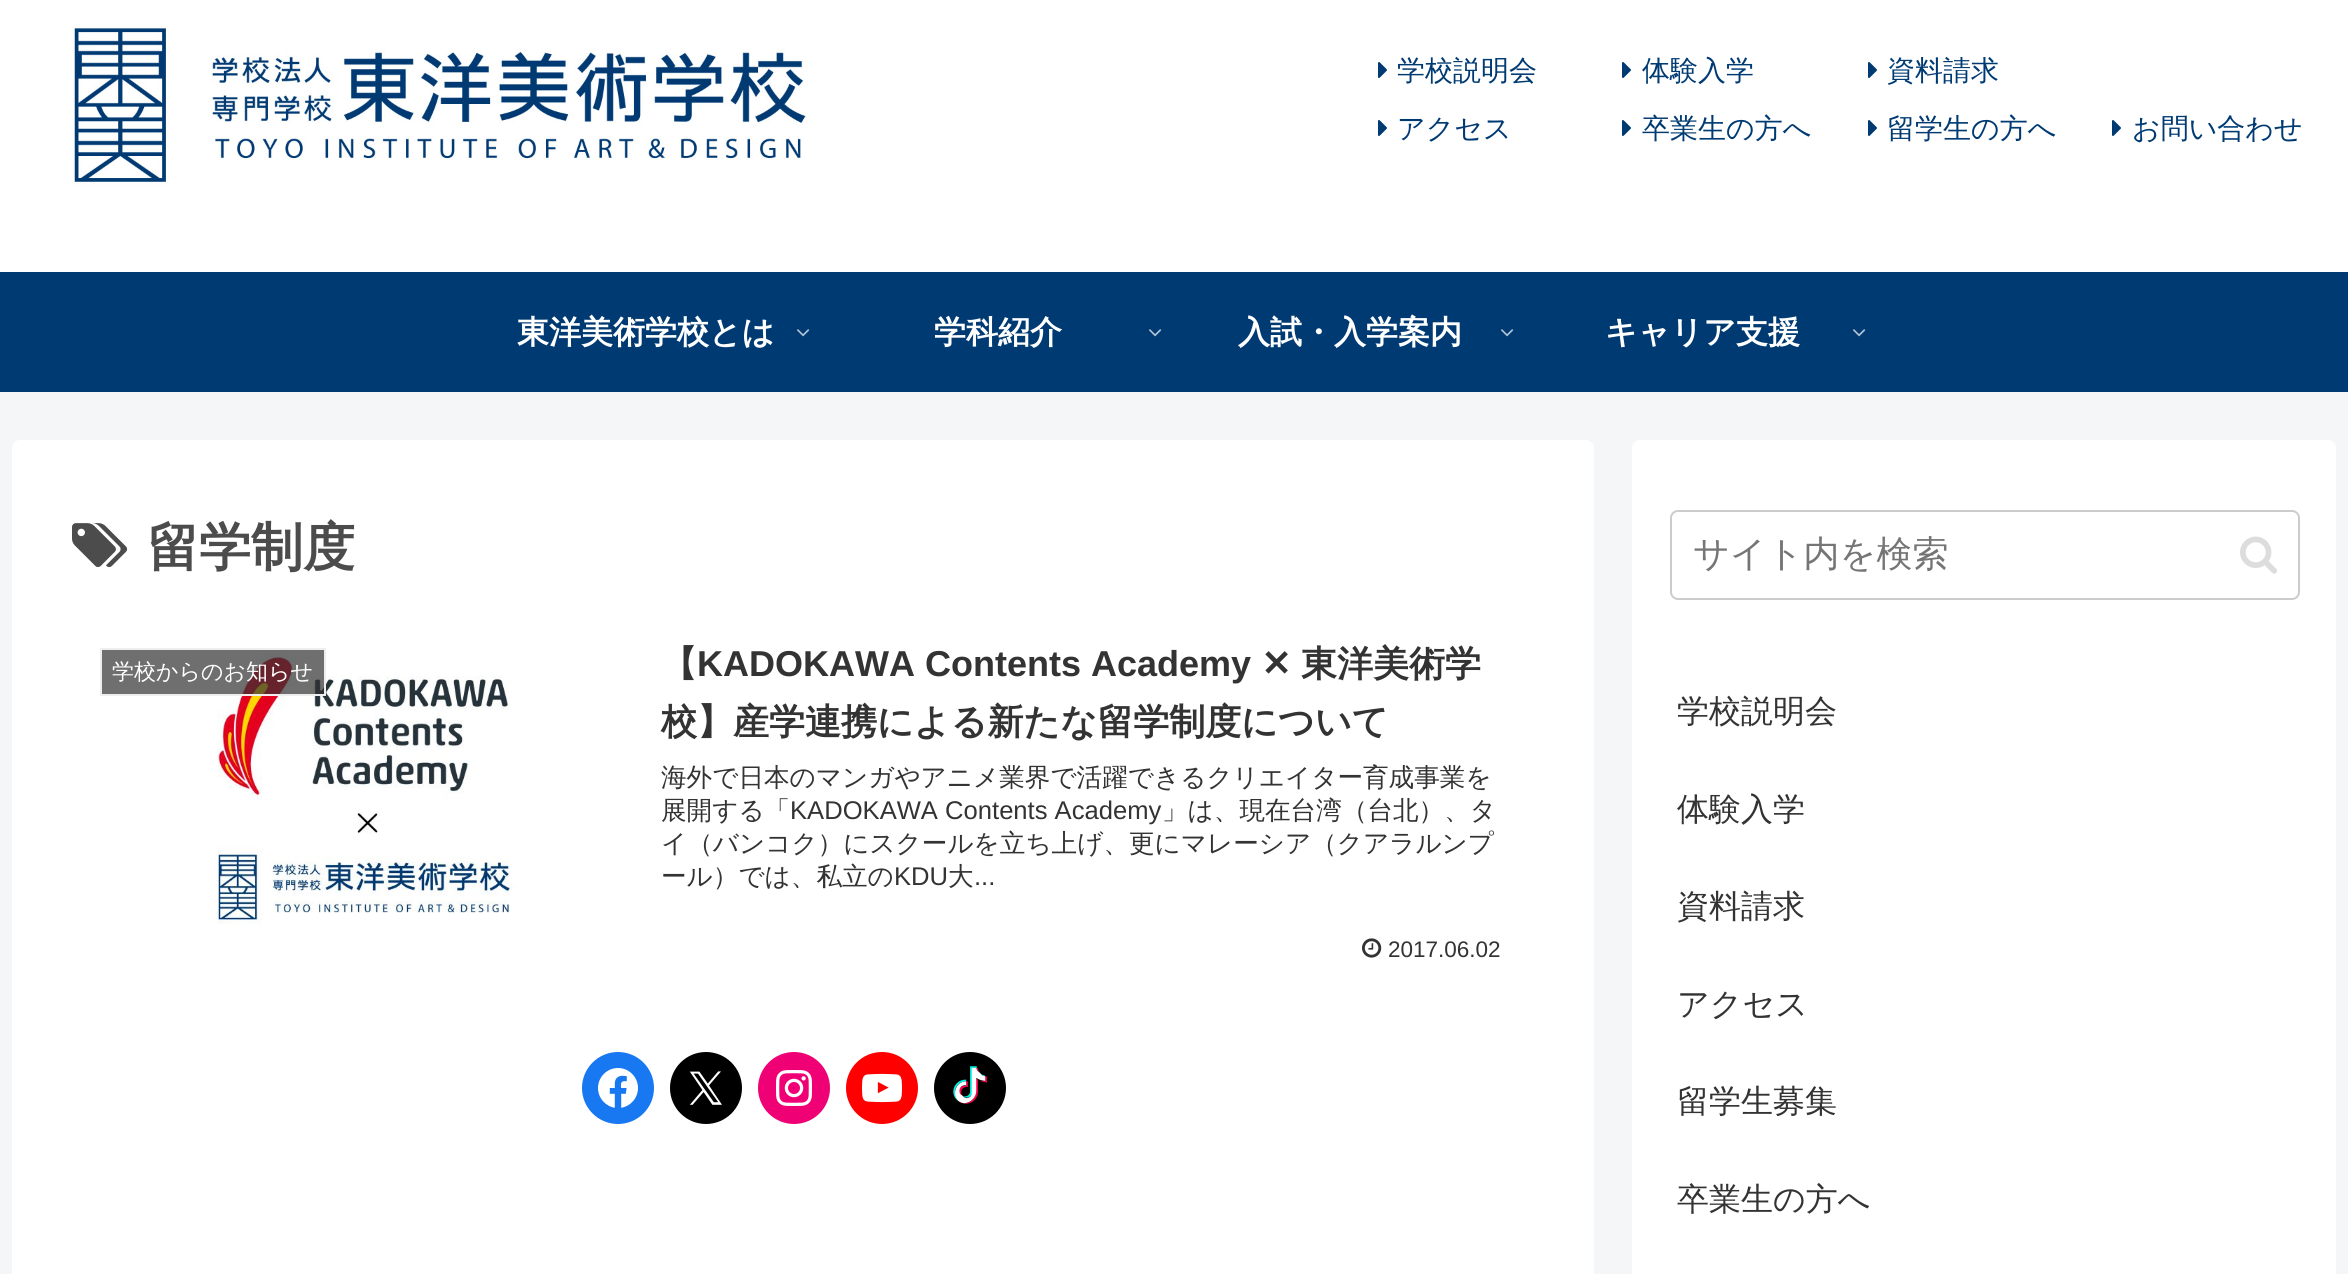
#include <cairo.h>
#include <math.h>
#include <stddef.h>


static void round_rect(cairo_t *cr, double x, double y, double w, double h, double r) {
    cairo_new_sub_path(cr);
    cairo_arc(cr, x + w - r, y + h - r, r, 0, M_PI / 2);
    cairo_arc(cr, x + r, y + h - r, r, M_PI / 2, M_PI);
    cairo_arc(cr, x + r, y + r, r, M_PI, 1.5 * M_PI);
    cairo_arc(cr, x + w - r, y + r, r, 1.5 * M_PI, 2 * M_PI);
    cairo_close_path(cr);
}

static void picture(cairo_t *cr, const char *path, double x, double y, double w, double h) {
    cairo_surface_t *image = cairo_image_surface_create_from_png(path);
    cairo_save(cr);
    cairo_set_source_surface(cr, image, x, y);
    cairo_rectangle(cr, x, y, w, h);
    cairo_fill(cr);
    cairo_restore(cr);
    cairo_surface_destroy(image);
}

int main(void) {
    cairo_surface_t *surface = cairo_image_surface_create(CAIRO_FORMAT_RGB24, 2348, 1274);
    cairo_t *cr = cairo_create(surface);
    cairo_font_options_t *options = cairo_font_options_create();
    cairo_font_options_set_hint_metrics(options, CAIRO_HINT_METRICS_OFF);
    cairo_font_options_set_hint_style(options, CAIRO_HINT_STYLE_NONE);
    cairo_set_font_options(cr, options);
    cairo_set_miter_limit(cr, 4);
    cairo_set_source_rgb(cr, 0.957, 0.961, 0.969);
    cairo_paint(cr);
    cairo_set_source_rgb(cr, 1, 1, 1);
    cairo_rectangle(cr, 0, 0, 2348, 272);
    cairo_fill(cr);
    picture(cr, "img1.png", 1378, 62, 9, 16);
    cairo_select_font_face(cr, "WenQuanYi Zen Hei Medium", CAIRO_FONT_SLANT_NORMAL, CAIRO_FONT_WEIGHT_NORMAL);
    cairo_set_font_size(cr, 28);
    cairo_set_source_rgb(cr, 0, 0.227, 0.451);
    cairo_move_to(cr, 1397, 80);
    cairo_show_text(cr, "学校説明会");
    picture(cr, "img1.png", 1622, 62, 9, 16);
    cairo_move_to(cr, 1642, 80);
    cairo_show_text(cr, "体験入学");
    picture(cr, "img1.png", 1868, 62, 9, 16);
    cairo_move_to(cr, 1887, 80);
    cairo_show_text(cr, "資料請求");
    picture(cr, "img1.png", 1378, 120, 9, 16);
    cairo_move_to(cr, 1397, 138);
    cairo_show_text(cr, "アクセス");
    picture(cr, "img1.png", 1622, 120, 9, 16);
    cairo_move_to(cr, 1642, 138);
    cairo_show_text(cr, "卒業生の方へ");
    picture(cr, "img1.png", 1868, 120, 9, 16);
    cairo_move_to(cr, 1887, 138);
    cairo_show_text(cr, "留学生の方へ");
    picture(cr, "img1.png", 2112, 120, 9, 16);
    cairo_move_to(cr, 2132, 138);
    cairo_show_text(cr, "お問い合わせ");
    picture(cr, "img2.png", 72, 27, 736, 160);
    cairo_rectangle(cr, 0, 272, 2348, 120);
    cairo_fill(cr);
    cairo_select_font_face(cr, "WenQuanYi Zen Hei", CAIRO_FONT_SLANT_NORMAL, CAIRO_FONT_WEIGHT_BOLD);
    cairo_set_font_size(cr, 32);
    cairo_set_source_rgb(cr, 1, 1, 1);
    cairo_move_to(cr, 517, 343);
    cairo_show_text(cr, "東洋美術学校とは");
    picture(cr, "img3.png", 797, 329, 13, 8);
    cairo_move_to(cr, 934, 343);
    cairo_show_text(cr, "学科紹介");
    picture(cr, "img3.png", 1149, 329, 13, 8);
    cairo_move_to(cr, 1238, 343);
    cairo_show_text(cr, "入試・入学案内");
    picture(cr, "img3.png", 1501, 329, 13, 8);
    cairo_move_to(cr, 1605, 343);
    cairo_show_text(cr, "キャリア支援");
    picture(cr, "img3.png", 1853, 329, 13, 8);
    round_rect(cr, 12, 440, 1582, 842, 8);
    cairo_fill(cr);
    picture(cr, "img4.png", 72, 523, 56, 45);
    cairo_set_font_size(cr, 52);
    cairo_set_source_rgb(cr, 0.298, 0.298, 0.298);
    cairo_move_to(cr, 147, 565);
    cairo_show_text(cr, "留学制度");
    picture(cr, "img5.png", 217, 653, 303, 271);
    cairo_set_source_rgba(cr, 0.2, 0.2, 0.2, 0.7);
    cairo_rectangle(cr, 101, 649, 224, 46);
    cairo_fill_preserve(cr);
    cairo_set_source_rgb(cr, 0.933, 0.933, 0.933);
    cairo_stroke(cr);
    cairo_select_font_face(cr, "WenQuanYi Zen Hei Medium", CAIRO_FONT_SLANT_NORMAL, CAIRO_FONT_WEIGHT_NORMAL);
    cairo_set_font_size(cr, 22);
    cairo_set_source_rgb(cr, 1, 1, 1);
    cairo_move_to(cr, 112, 679);
    cairo_show_text(cr, "学校からのお知らせ");
    cairo_select_font_face(cr, "WenQuanYi Zen Hei", CAIRO_FONT_SLANT_NORMAL, CAIRO_FONT_WEIGHT_BOLD);
    cairo_set_font_size(cr, 36);
    cairo_set_source_rgb(cr, 0.2, 0.2, 0.2);
    cairo_move_to(cr, 661, 676);
    cairo_show_text(cr, "【");
    cairo_select_font_face(cr, "Liberation Sans", CAIRO_FONT_SLANT_NORMAL, CAIRO_FONT_WEIGHT_BOLD);
    cairo_move_to(cr, 697, 676);
    cairo_show_text(cr, "KADOKAWA Contents Academy");
    cairo_select_font_face(cr, "DejaVu Sans", CAIRO_FONT_SLANT_NORMAL, CAIRO_FONT_WEIGHT_BOLD);
    cairo_move_to(cr, 1261, 676);
    cairo_show_text(cr, "✕");
    cairo_select_font_face(cr, "WenQuanYi Zen Hei", CAIRO_FONT_SLANT_NORMAL, CAIRO_FONT_WEIGHT_BOLD);
    cairo_move_to(cr, 1301, 676);
    cairo_show_text(cr, "東洋美術学");
    cairo_move_to(cr, 661, 734);
    cairo_show_text(cr, "校】産学連携による新たな留学制度について");
    cairo_select_font_face(cr, "WenQuanYi Zen Hei Medium", CAIRO_FONT_SLANT_NORMAL, CAIRO_FONT_WEIGHT_NORMAL);
    cairo_set_font_size(cr, 25.6);
    cairo_move_to(cr, 661, 786);
    cairo_show_text(cr, "海外で日本のマンガやアニメ業界で活躍できるクリエイター育成事業を");
    cairo_move_to(cr, 661, 819);
    cairo_show_text(cr, "展開する「");
    cairo_select_font_face(cr, "Liberation Sans", CAIRO_FONT_SLANT_NORMAL, CAIRO_FONT_WEIGHT_NORMAL);
    cairo_move_to(cr, 790, 819);
    cairo_show_text(cr, "KADOKAWA Contents Academy");
    cairo_select_font_face(cr, "WenQuanYi Zen Hei Medium", CAIRO_FONT_SLANT_NORMAL, CAIRO_FONT_WEIGHT_NORMAL);
    cairo_move_to(cr, 1162, 819);
    cairo_show_text(cr, "」は、現在台湾（台北）、タ");
    cairo_move_to(cr, 661, 852);
    cairo_show_text(cr, "イ（バンコク）にスクールを立ち上げ、更にマレーシア（クアラルンプ");
    cairo_move_to(cr, 661, 885);
    cairo_show_text(cr, "ール）では、私立の");
    cairo_select_font_face(cr, "Liberation Sans", CAIRO_FONT_SLANT_NORMAL, CAIRO_FONT_WEIGHT_NORMAL);
    cairo_move_to(cr, 894, 885);
    cairo_show_text(cr, "KDU");
    cairo_select_font_face(cr, "WenQuanYi Zen Hei Medium", CAIRO_FONT_SLANT_NORMAL, CAIRO_FONT_WEIGHT_NORMAL);
    cairo_move_to(cr, 948, 885);
    cairo_show_text(cr, "大");
    cairo_select_font_face(cr, "Liberation Sans", CAIRO_FONT_SLANT_NORMAL, CAIRO_FONT_WEIGHT_NORMAL);
    cairo_move_to(cr, 974, 885);
    cairo_show_text(cr, "...");
    picture(cr, "img6.png", 1362, 938, 20, 20);
    cairo_set_font_size(cr, 22.5);
    cairo_move_to(cr, 1388, 957);
    cairo_show_text(cr, "2017.06.02");
    cairo_set_source_rgb(cr, 0.09, 0.471, 0.949);
    cairo_new_path(cr);
    cairo_arc(cr, 618, 1088, 36, 0, 2 * M_PI);
    cairo_fill(cr);
    picture(cr, "img7.png", 598, 1068, 40, 40);
    cairo_set_source_rgb(cr, 0, 0, 0);
    cairo_arc(cr, 706, 1088, 36, 0, 2 * M_PI);
    cairo_fill(cr);
    picture(cr, "img8.png", 689, 1071, 33, 34);
    cairo_set_source_rgb(cr, 0.941, 0, 0.459);
    cairo_arc(cr, 794, 1088, 36, 0, 2 * M_PI);
    cairo_fill(cr);
    picture(cr, "img9.png", 776, 1070, 36, 36);
    cairo_set_source_rgb(cr, 1, 0, 0);
    cairo_arc(cr, 882, 1088, 36, 0, 2 * M_PI);
    cairo_fill(cr);
    picture(cr, "img10.png", 862, 1073, 40, 30);
    cairo_set_source_rgb(cr, 0, 0, 0);
    cairo_arc(cr, 970, 1088, 36, 0, 2 * M_PI);
    cairo_fill(cr);
    picture(cr, "img11.png", 953, 1066, 34, 38);
    cairo_set_source_rgb(cr, 1, 1, 1);
    round_rect(cr, 1632, 440, 704, 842, 8);
    cairo_fill(cr);
    round_rect(cr, 1671, 511, 628, 88, 7);
    cairo_set_source_rgb(cr, 0.8, 0.8, 0.8);
    cairo_stroke(cr);
    cairo_select_font_face(cr, "WenQuanYi Zen Hei Medium", CAIRO_FONT_SLANT_NORMAL, CAIRO_FONT_WEIGHT_NORMAL);
    cairo_set_font_size(cr, 36);
    cairo_set_source_rgb(cr, 0.459, 0.459, 0.459);
    cairo_move_to(cr, 1693, 566);
    cairo_show_text(cr, "サイト内を検索");
    picture(cr, "img12.png", 2240, 536, 37, 38);
    cairo_set_font_size(cr, 32);
    cairo_set_source_rgb(cr, 0.2, 0.2, 0.2);
    cairo_move_to(cr, 1677, 722);
    cairo_show_text(cr, "学校説明会");
    cairo_move_to(cr, 1677, 820);
    cairo_show_text(cr, "体験入学");
    cairo_move_to(cr, 1677, 917);
    cairo_show_text(cr, "資料請求");
    cairo_move_to(cr, 1677, 1015);
    cairo_show_text(cr, "アクセス");
    cairo_move_to(cr, 1677, 1112);
    cairo_show_text(cr, "留学生募集");
    cairo_move_to(cr, 1677, 1210);
    cairo_show_text(cr, "卒業生の方へ");
    cairo_surface_write_to_png(surface, "page.png");
    cairo_font_options_destroy(options);
    cairo_destroy(cr);
    cairo_surface_destroy(surface);
    return 0;
}
